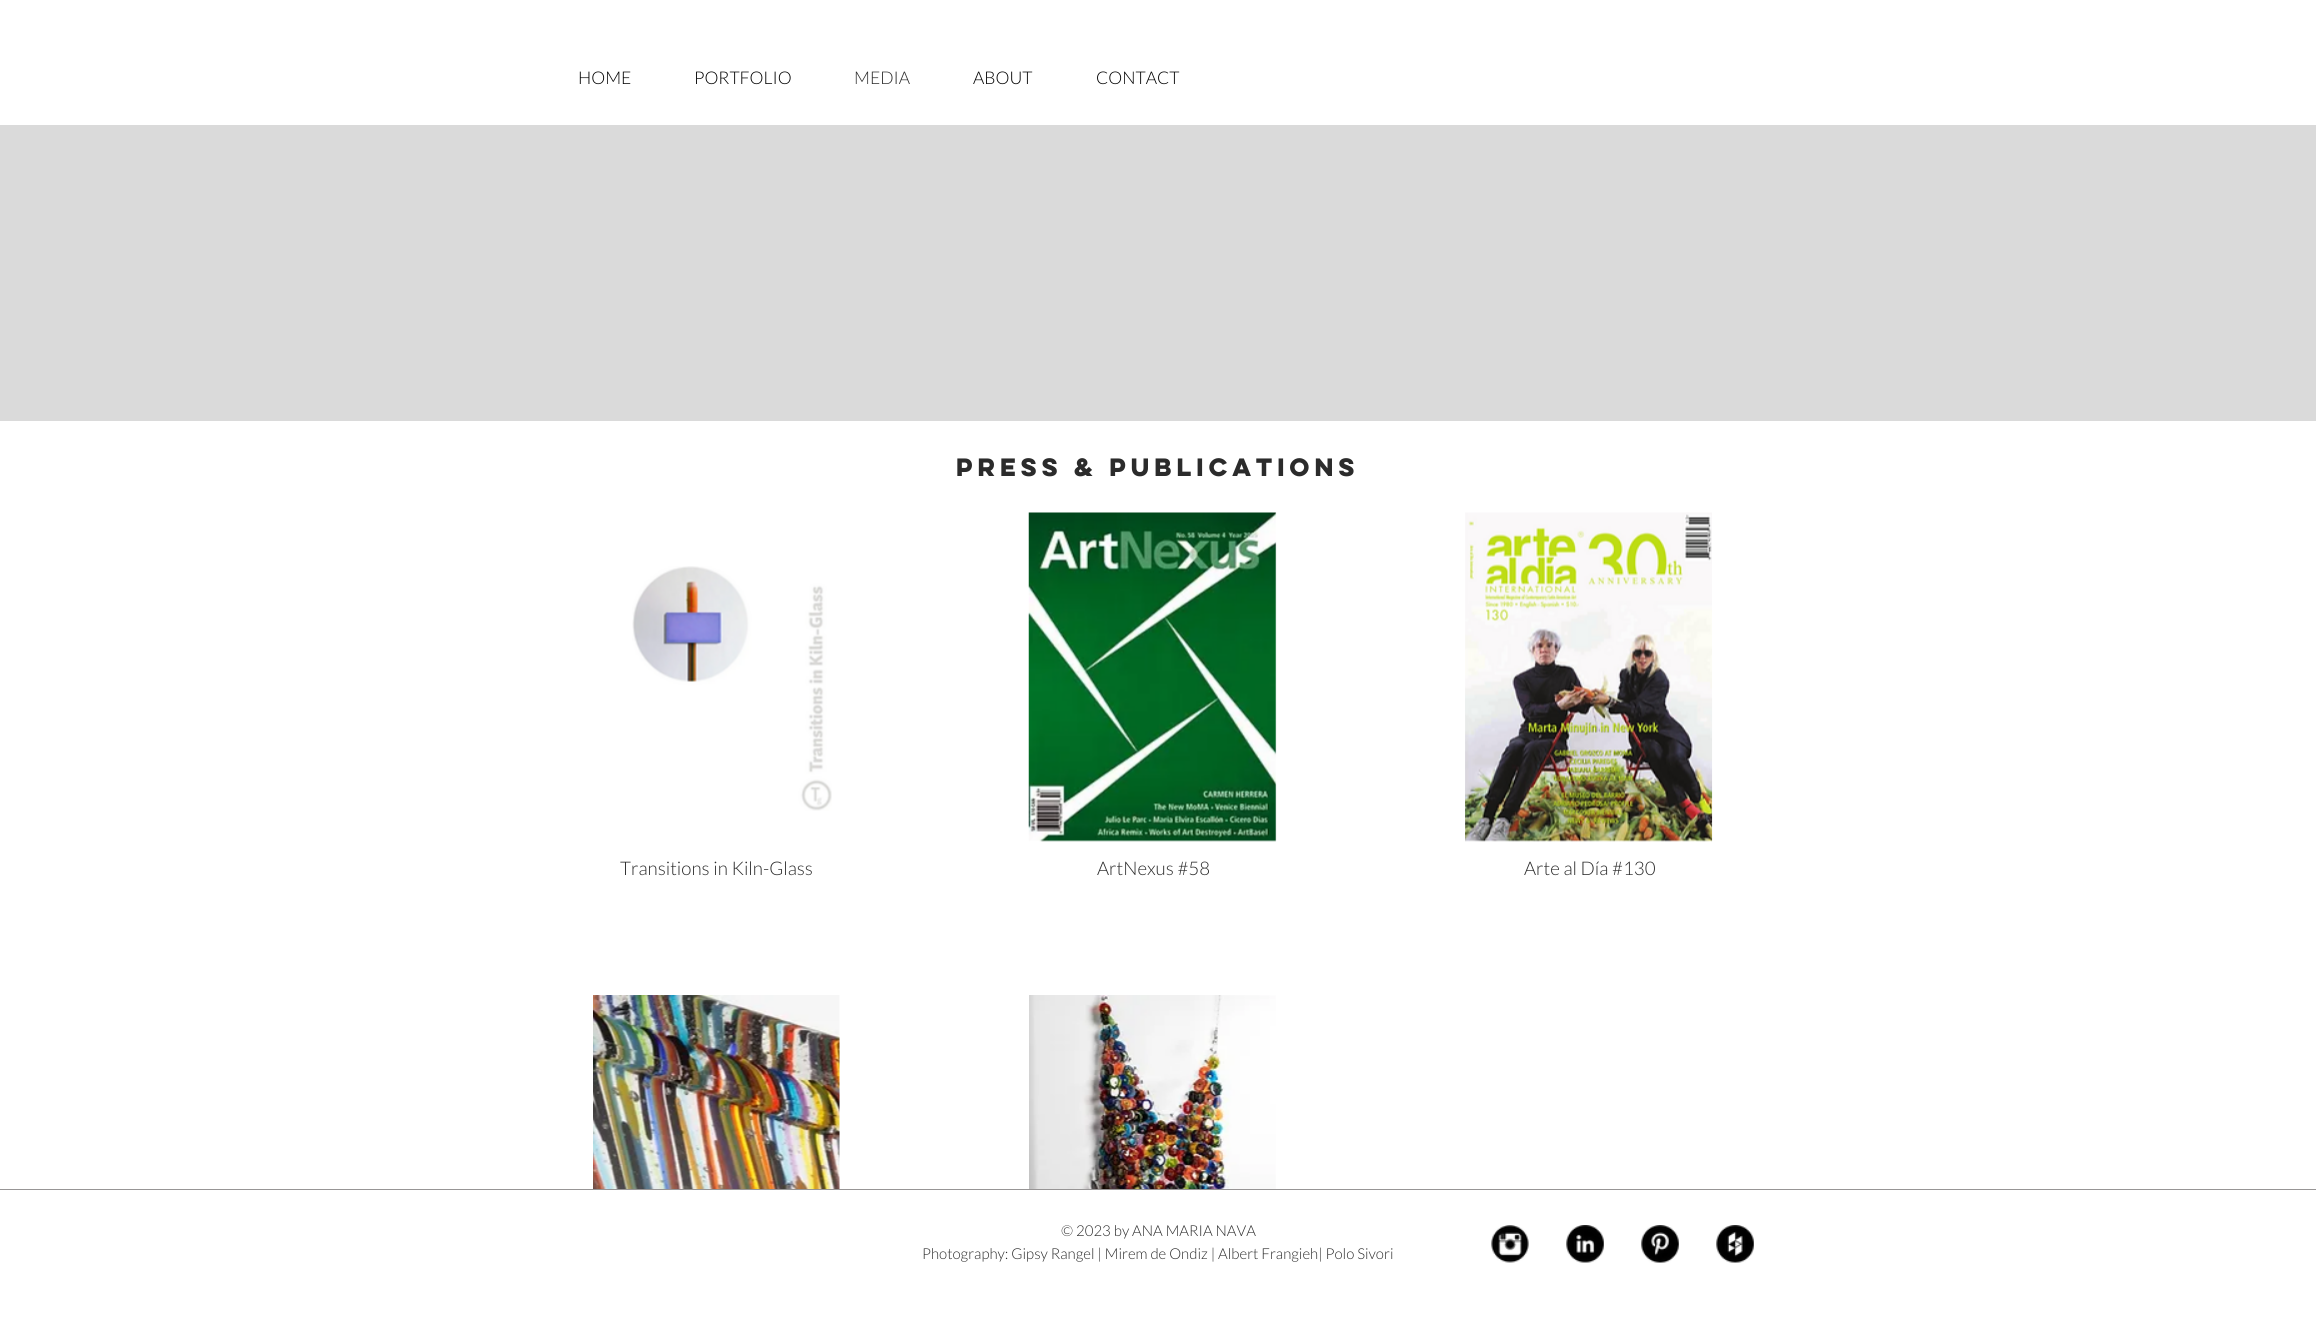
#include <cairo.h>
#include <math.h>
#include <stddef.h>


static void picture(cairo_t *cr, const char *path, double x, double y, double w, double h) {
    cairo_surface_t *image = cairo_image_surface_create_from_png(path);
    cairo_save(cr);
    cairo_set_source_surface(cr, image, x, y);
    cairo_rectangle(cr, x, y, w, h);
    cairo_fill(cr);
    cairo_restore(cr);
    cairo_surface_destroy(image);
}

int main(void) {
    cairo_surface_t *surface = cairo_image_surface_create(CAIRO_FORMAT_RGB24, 2316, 1322);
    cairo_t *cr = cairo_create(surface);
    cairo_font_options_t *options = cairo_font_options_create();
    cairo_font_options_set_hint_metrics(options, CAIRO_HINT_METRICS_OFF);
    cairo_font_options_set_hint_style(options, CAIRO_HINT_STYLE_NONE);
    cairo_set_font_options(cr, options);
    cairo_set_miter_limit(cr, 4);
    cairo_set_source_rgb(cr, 1, 1, 1);
    cairo_paint(cr);
    cairo_select_font_face(cr, "Lato Light", CAIRO_FONT_SLANT_NORMAL, CAIRO_FONT_WEIGHT_NORMAL);
    cairo_set_font_size(cr, 17.5);
    cairo_set_source_rgb(cr, 0, 0, 0);
    cairo_move_to(cr, 578, 84);
    cairo_show_text(cr, "HOME");
    cairo_move_to(cr, 694, 84);
    cairo_show_text(cr, "PORTFOLIO");
    cairo_set_source_rgb(cr, 0.169, 0.169, 0.169);
    cairo_move_to(cr, 854, 84);
    cairo_show_text(cr, "MEDIA");
    cairo_set_source_rgb(cr, 0, 0, 0);
    cairo_move_to(cr, 973, 84);
    cairo_show_text(cr, "ABOUT");
    cairo_move_to(cr, 1096, 84);
    cairo_show_text(cr, "CONTACT");
    cairo_set_source_rgb(cr, 0.855, 0.855, 0.855);
    cairo_rectangle(cr, 0, 125, 2316, 296);
    cairo_fill(cr);
    cairo_select_font_face(cr, "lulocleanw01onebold", CAIRO_FONT_SLANT_NORMAL, CAIRO_FONT_WEIGHT_BOLD);
    cairo_set_font_size(cr, 22.5);
    cairo_set_source_rgb(cr, 0.169, 0.169, 0.169);
    cairo_move_to(cr, 956, 476);
    cairo_show_text(cr, "PRESS & PUBLICATIONS");
    picture(cr, "img1.png", 632, 566, 200, 245);
    cairo_select_font_face(cr, "Lato Light", CAIRO_FONT_SLANT_NORMAL, CAIRO_FONT_WEIGHT_NORMAL);
    cairo_set_font_size(cr, 18.75);
    cairo_move_to(cr, 620, 875);
    cairo_show_text(cr, "Transitions in Kiln-Glass");
    picture(cr, "img2.png", 593, 995, 247, 194);
    picture(cr, "img3.png", 1028, 512, 249, 330);
    cairo_move_to(cr, 1097, 875);
    cairo_show_text(cr, "ArtNexus #58");
    picture(cr, "img4.png", 1029, 995, 247, 194);
    picture(cr, "img5.png", 1465, 512, 248, 330);
    cairo_move_to(cr, 1524, 875);
    cairo_show_text(cr, "Arte al Día #130");
    cairo_set_source_rgb(cr, 0.592, 0.584, 0.584);
    cairo_rectangle(cr, 0, 1189, 2316, 1);
    cairo_fill(cr);
    cairo_set_font_size(cr, 15);
    cairo_set_source_rgb(cr, 0.169, 0.169, 0.169);
    cairo_move_to(cr, 1061, 1236);
    cairo_show_text(cr, "© 2023 by ANA MARIA NAVA");
    cairo_move_to(cr, 922, 1259);
    cairo_show_text(cr, "Photography: Gipsy Rangel | Mirem de Ondiz | Albert Frangieh| Polo Sivori");
    picture(cr, "img6.png", 1491, 1225, 38, 38);
    picture(cr, "img7.png", 1566, 1225, 38, 38);
    picture(cr, "img8.png", 1641, 1225, 38, 38);
    picture(cr, "img9.png", 1716, 1225, 38, 38);
    cairo_surface_write_to_png(surface, "page.png");
    cairo_font_options_destroy(options);
    cairo_destroy(cr);
    cairo_surface_destroy(surface);
    return 0;
}
